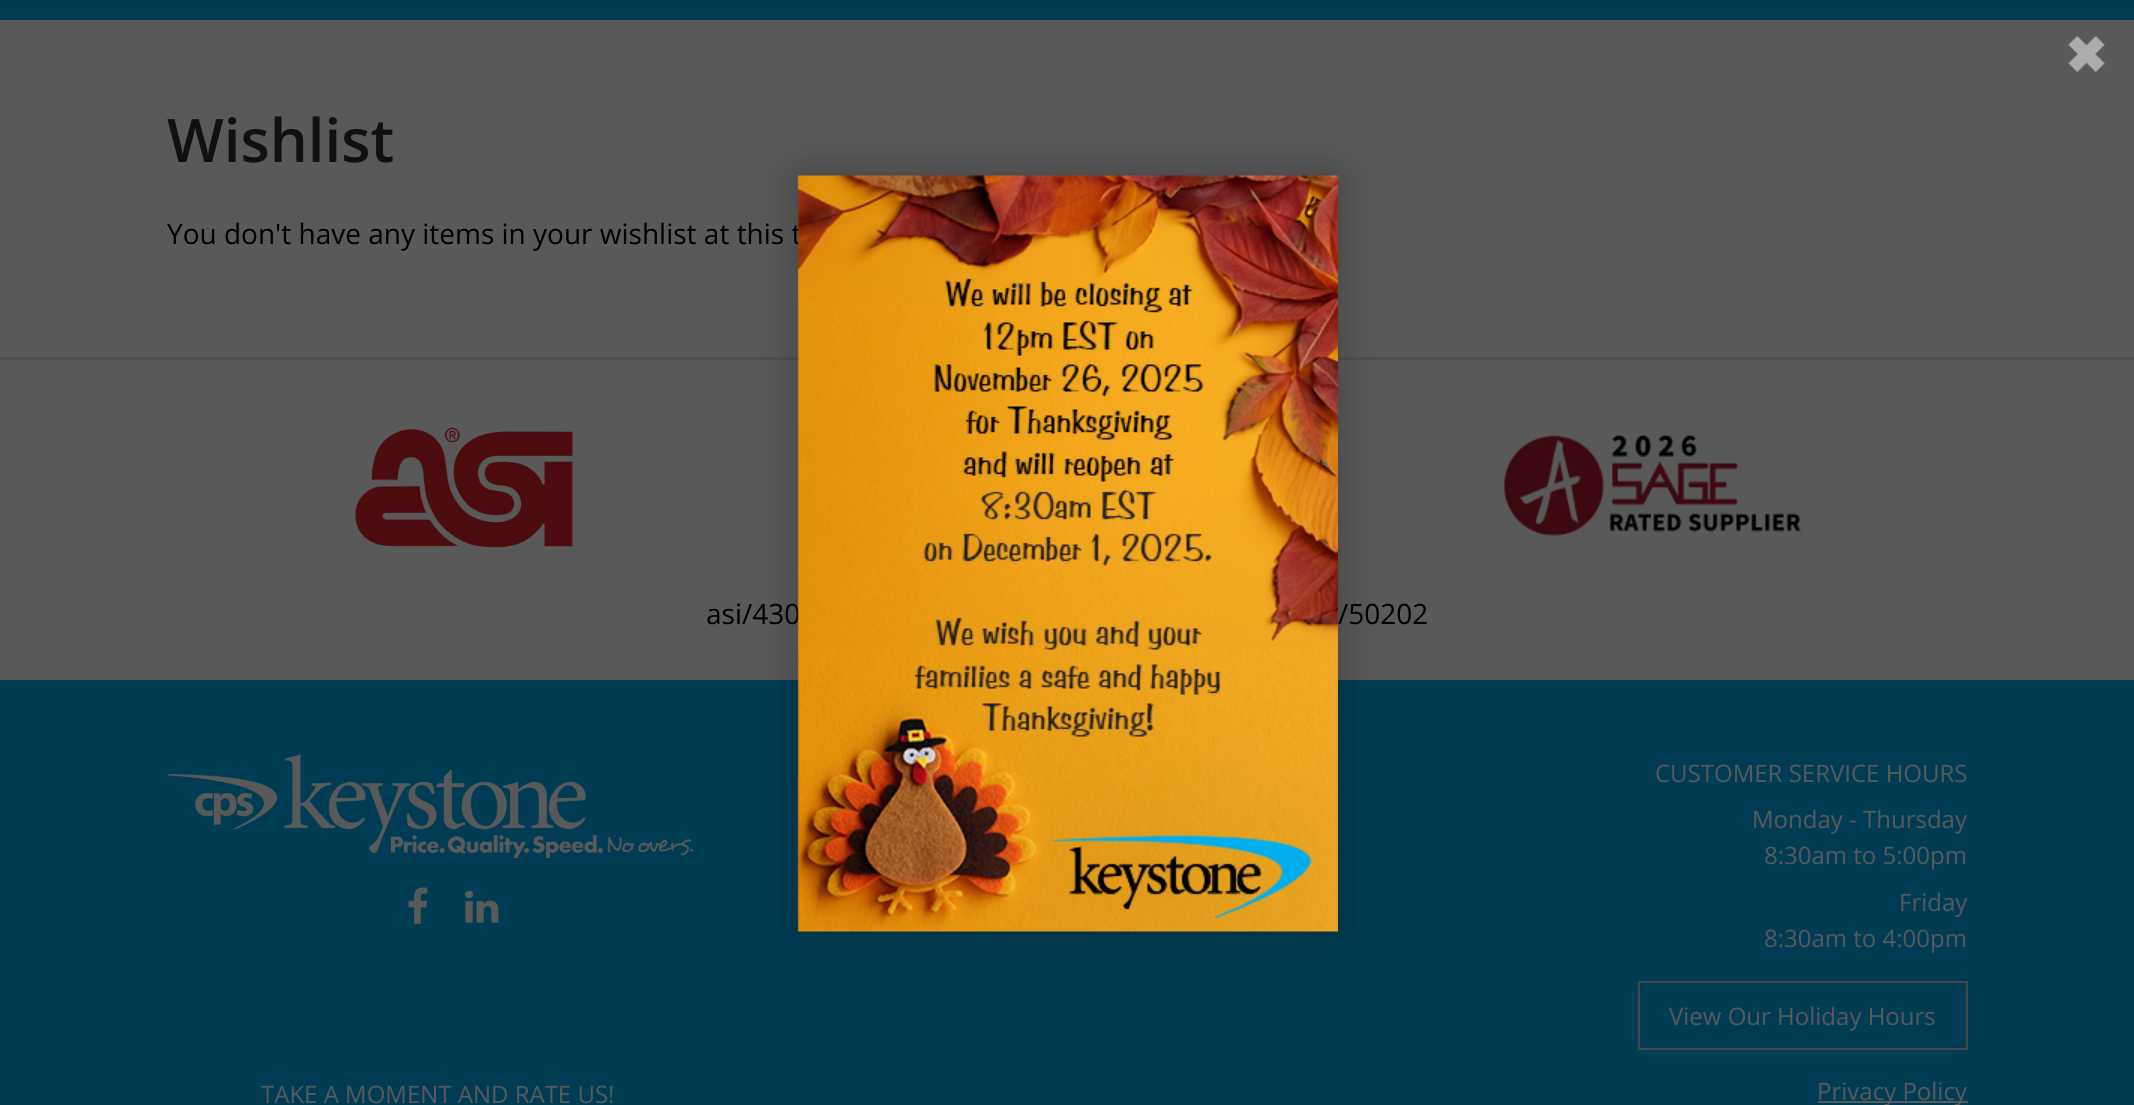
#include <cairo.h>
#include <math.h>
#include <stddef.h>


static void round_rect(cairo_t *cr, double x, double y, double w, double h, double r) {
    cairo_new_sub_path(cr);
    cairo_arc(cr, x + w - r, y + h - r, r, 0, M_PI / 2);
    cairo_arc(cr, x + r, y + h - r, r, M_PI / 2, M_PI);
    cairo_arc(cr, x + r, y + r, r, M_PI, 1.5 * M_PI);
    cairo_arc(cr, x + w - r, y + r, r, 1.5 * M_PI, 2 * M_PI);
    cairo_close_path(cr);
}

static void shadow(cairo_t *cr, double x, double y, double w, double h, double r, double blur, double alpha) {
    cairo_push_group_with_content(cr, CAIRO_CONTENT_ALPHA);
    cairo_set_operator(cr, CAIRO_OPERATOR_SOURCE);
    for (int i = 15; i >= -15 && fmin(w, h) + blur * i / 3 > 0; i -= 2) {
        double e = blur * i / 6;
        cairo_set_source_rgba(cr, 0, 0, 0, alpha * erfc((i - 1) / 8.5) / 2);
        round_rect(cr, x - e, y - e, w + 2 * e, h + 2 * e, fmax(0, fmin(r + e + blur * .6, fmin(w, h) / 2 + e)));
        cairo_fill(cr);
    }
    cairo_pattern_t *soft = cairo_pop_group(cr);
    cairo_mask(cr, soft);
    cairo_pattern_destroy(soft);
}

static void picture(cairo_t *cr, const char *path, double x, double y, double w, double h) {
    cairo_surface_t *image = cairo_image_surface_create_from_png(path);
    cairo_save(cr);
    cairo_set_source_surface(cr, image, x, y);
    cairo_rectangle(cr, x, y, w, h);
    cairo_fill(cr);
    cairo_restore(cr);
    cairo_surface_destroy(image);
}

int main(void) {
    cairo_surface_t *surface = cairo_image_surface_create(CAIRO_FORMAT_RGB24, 2134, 1105);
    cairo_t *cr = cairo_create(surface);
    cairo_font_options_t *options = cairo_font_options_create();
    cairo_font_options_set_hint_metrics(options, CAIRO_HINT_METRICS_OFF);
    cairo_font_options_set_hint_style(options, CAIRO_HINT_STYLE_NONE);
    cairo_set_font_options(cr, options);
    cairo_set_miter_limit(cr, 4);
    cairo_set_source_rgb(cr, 0.349, 0.349, 0.349);
    cairo_paint(cr);
    picture(cr, "img1.png", 2068, 36, 37, 36);
    cairo_set_source_rgb(cr, 0.314, 0.314, 0.314);
    cairo_rectangle(cr, 0, 357, 2134, 3);
    cairo_fill(cr);
    cairo_set_source_rgb(cr, 0, 0.239, 0.329);
    cairo_rectangle(cr, 0, 680, 2134, 425);
    cairo_fill(cr);
    cairo_set_source_rgb(cr, 0, 0, 0);
    shadow(cr, 798, 176, 540, 756, 0, 22.5, 0.25);
    cairo_select_font_face(cr, "Open Sans", CAIRO_FONT_SLANT_NORMAL, CAIRO_FONT_WEIGHT_NORMAL);
    cairo_set_font_size(cr, 28);
    cairo_set_source_rgb(cr, 0, 0, 0);
    cairo_move_to(cr, 167, 244);
    cairo_show_text(cr, "You don't have any items in your wishlist at this t");
    cairo_move_to(cr, 706, 624);
    cairo_show_text(cr, "asi/430");
    picture(cr, "img2.png", 797, 175, 541, 757);
    cairo_set_source_rgb(cr, 0, 0.239, 0.329);
    cairo_rectangle(cr, 0, 0, 2134, 20);
    cairo_fill(cr);
    cairo_select_font_face(cr, "Open Sans SemiBold", CAIRO_FONT_SLANT_NORMAL, CAIRO_FONT_WEIGHT_NORMAL);
    cairo_set_font_size(cr, 60);
    cairo_set_source_rgb(cr, 0.059, 0.063, 0.067);
    cairo_move_to(cr, 167, 162);
    cairo_show_text(cr, "Wishlist");
    picture(cr, "img3.png", 355, 427, 218, 121);
    picture(cr, "img4.png", 1504, 434, 297, 102);
    cairo_select_font_face(cr, "Open Sans", CAIRO_FONT_SLANT_NORMAL, CAIRO_FONT_WEIGHT_NORMAL);
    cairo_set_font_size(cr, 28);
    cairo_set_source_rgb(cr, 0, 0, 0);
    cairo_move_to(cr, 1338, 624);
    cairo_show_text(cr, "/50202");
    picture(cr, "img5.png", 168, 754, 525, 104);
    picture(cr, "img6.png", 408, 887, 20, 37);
    picture(cr, "img7.png", 465, 890, 34, 33);
    cairo_set_font_size(cr, 24);
    cairo_set_source_rgb(cr, 0.349, 0.349, 0.349);
    cairo_move_to(cr, 1655, 782);
    cairo_show_text(cr, "CUSTOMER SERVICE HOURS");
    cairo_move_to(cr, 1752, 828);
    cairo_show_text(cr, "Monday - Thursday");
    cairo_move_to(cr, 1764, 864);
    cairo_show_text(cr, "8:30am to 5:00pm");
    cairo_move_to(cr, 1899, 911);
    cairo_show_text(cr, "Friday");
    cairo_move_to(cr, 1764, 947);
    cairo_show_text(cr, "8:30am to 4:00pm");
    cairo_rectangle(cr, 1639, 982, 328, 67);
    cairo_set_source_rgb(cr, 0.278, 0.278, 0.278);
    cairo_stroke(cr);
    cairo_set_source_rgb(cr, 0.349, 0.349, 0.349);
    cairo_move_to(cr, 1669, 1025);
    cairo_show_text(cr, "View Our Holiday Hours");
    cairo_rectangle(cr, 1818, 1101, 150, 2);
    cairo_fill(cr);
    cairo_move_to(cr, 1817, 1100);
    cairo_show_text(cr, "Privacy Policy");
    cairo_move_to(cr, 261, 1103);
    cairo_show_text(cr, "TAKE A MOMENT AND RATE US!");
    cairo_surface_write_to_png(surface, "page.png");
    cairo_font_options_destroy(options);
    cairo_destroy(cr);
    cairo_surface_destroy(surface);
    return 0;
}
